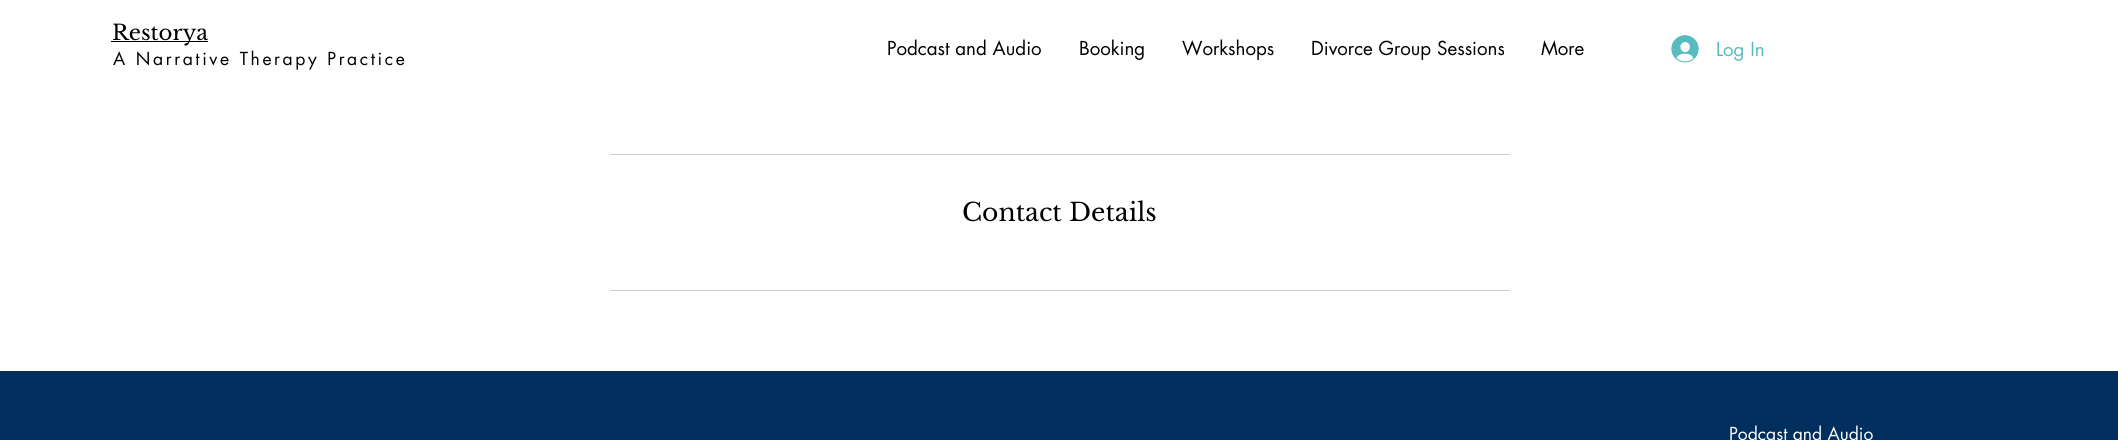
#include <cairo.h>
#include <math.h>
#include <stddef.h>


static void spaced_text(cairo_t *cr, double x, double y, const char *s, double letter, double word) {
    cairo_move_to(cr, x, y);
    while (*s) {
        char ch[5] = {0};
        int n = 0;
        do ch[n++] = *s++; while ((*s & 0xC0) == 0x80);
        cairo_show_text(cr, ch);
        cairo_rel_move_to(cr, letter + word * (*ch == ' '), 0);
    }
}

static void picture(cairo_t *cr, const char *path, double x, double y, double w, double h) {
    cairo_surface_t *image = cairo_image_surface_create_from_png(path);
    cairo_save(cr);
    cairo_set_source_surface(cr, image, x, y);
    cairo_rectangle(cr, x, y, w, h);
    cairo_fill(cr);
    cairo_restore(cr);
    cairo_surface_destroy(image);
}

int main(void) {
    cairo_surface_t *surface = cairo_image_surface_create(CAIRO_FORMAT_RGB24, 2118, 440);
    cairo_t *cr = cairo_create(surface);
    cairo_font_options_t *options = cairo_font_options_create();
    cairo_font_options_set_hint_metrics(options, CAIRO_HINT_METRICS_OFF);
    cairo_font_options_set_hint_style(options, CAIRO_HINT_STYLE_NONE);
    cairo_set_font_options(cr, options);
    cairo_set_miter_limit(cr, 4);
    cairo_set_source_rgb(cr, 1, 1, 1);
    cairo_paint(cr);
    cairo_set_source_rgb(cr, 0, 0, 0);
    cairo_rectangle(cr, 111, 41, 97, 1);
    cairo_fill(cr);
    cairo_select_font_face(cr, "Libre Baskerville", CAIRO_FONT_SLANT_NORMAL, CAIRO_FONT_WEIGHT_NORMAL);
    cairo_set_font_size(cr, 21.25);
    cairo_move_to(cr, 112, 40);
    cairo_show_text(cr, "Restorya");
    cairo_select_font_face(cr, "futura", CAIRO_FONT_SLANT_NORMAL, CAIRO_FONT_WEIGHT_NORMAL);
    cairo_set_font_size(cr, 17.5);
    spaced_text(cr, 113, 65, "A Narrative Therapy Practice", 2.6, 0);
    cairo_set_font_size(cr, 18.75);
    cairo_move_to(cr, 887, 55);
    cairo_show_text(cr, "Podcast and Audio");
    cairo_move_to(cr, 1079, 55);
    cairo_show_text(cr, "Booking");
    cairo_move_to(cr, 1182, 55);
    cairo_show_text(cr, "Workshops");
    cairo_move_to(cr, 1311, 55);
    cairo_show_text(cr, "Divorce Group Sessions");
    cairo_move_to(cr, 1541, 55);
    cairo_show_text(cr, "More");
    picture(cr, "img1.png", 1671, 35, 28, 28);
    cairo_set_source_rgb(cr, 0.341, 0.733, 0.749);
    cairo_move_to(cr, 1716, 56);
    cairo_show_text(cr, "Log In");
    cairo_set_source_rgb(cr, 0.8, 0.8, 0.8);
    cairo_rectangle(cr, 610, 154, 900, 1);
    cairo_fill(cr);
    cairo_select_font_face(cr, "Libre Baskerville", CAIRO_FONT_SLANT_NORMAL, CAIRO_FONT_WEIGHT_NORMAL);
    cairo_set_font_size(cr, 25);
    cairo_set_source_rgb(cr, 0, 0, 0);
    cairo_move_to(cr, 962, 221);
    cairo_show_text(cr, "Contact Details");
    cairo_set_source_rgb(cr, 0.8, 0.8, 0.8);
    cairo_rectangle(cr, 610, 290, 900, 1);
    cairo_fill(cr);
    cairo_set_source_rgb(cr, 0, 0.18, 0.365);
    cairo_rectangle(cr, 0, 371, 2118, 69);
    cairo_fill(cr);
    cairo_select_font_face(cr, "futura", CAIRO_FONT_SLANT_NORMAL, CAIRO_FONT_WEIGHT_NORMAL);
    cairo_set_font_size(cr, 17.5);
    cairo_set_source_rgb(cr, 1, 1, 1);
    cairo_move_to(cr, 1729, 440);
    cairo_show_text(cr, "Podcast and Audio");
    cairo_surface_write_to_png(surface, "page.png");
    cairo_font_options_destroy(options);
    cairo_destroy(cr);
    cairo_surface_destroy(surface);
    return 0;
}
